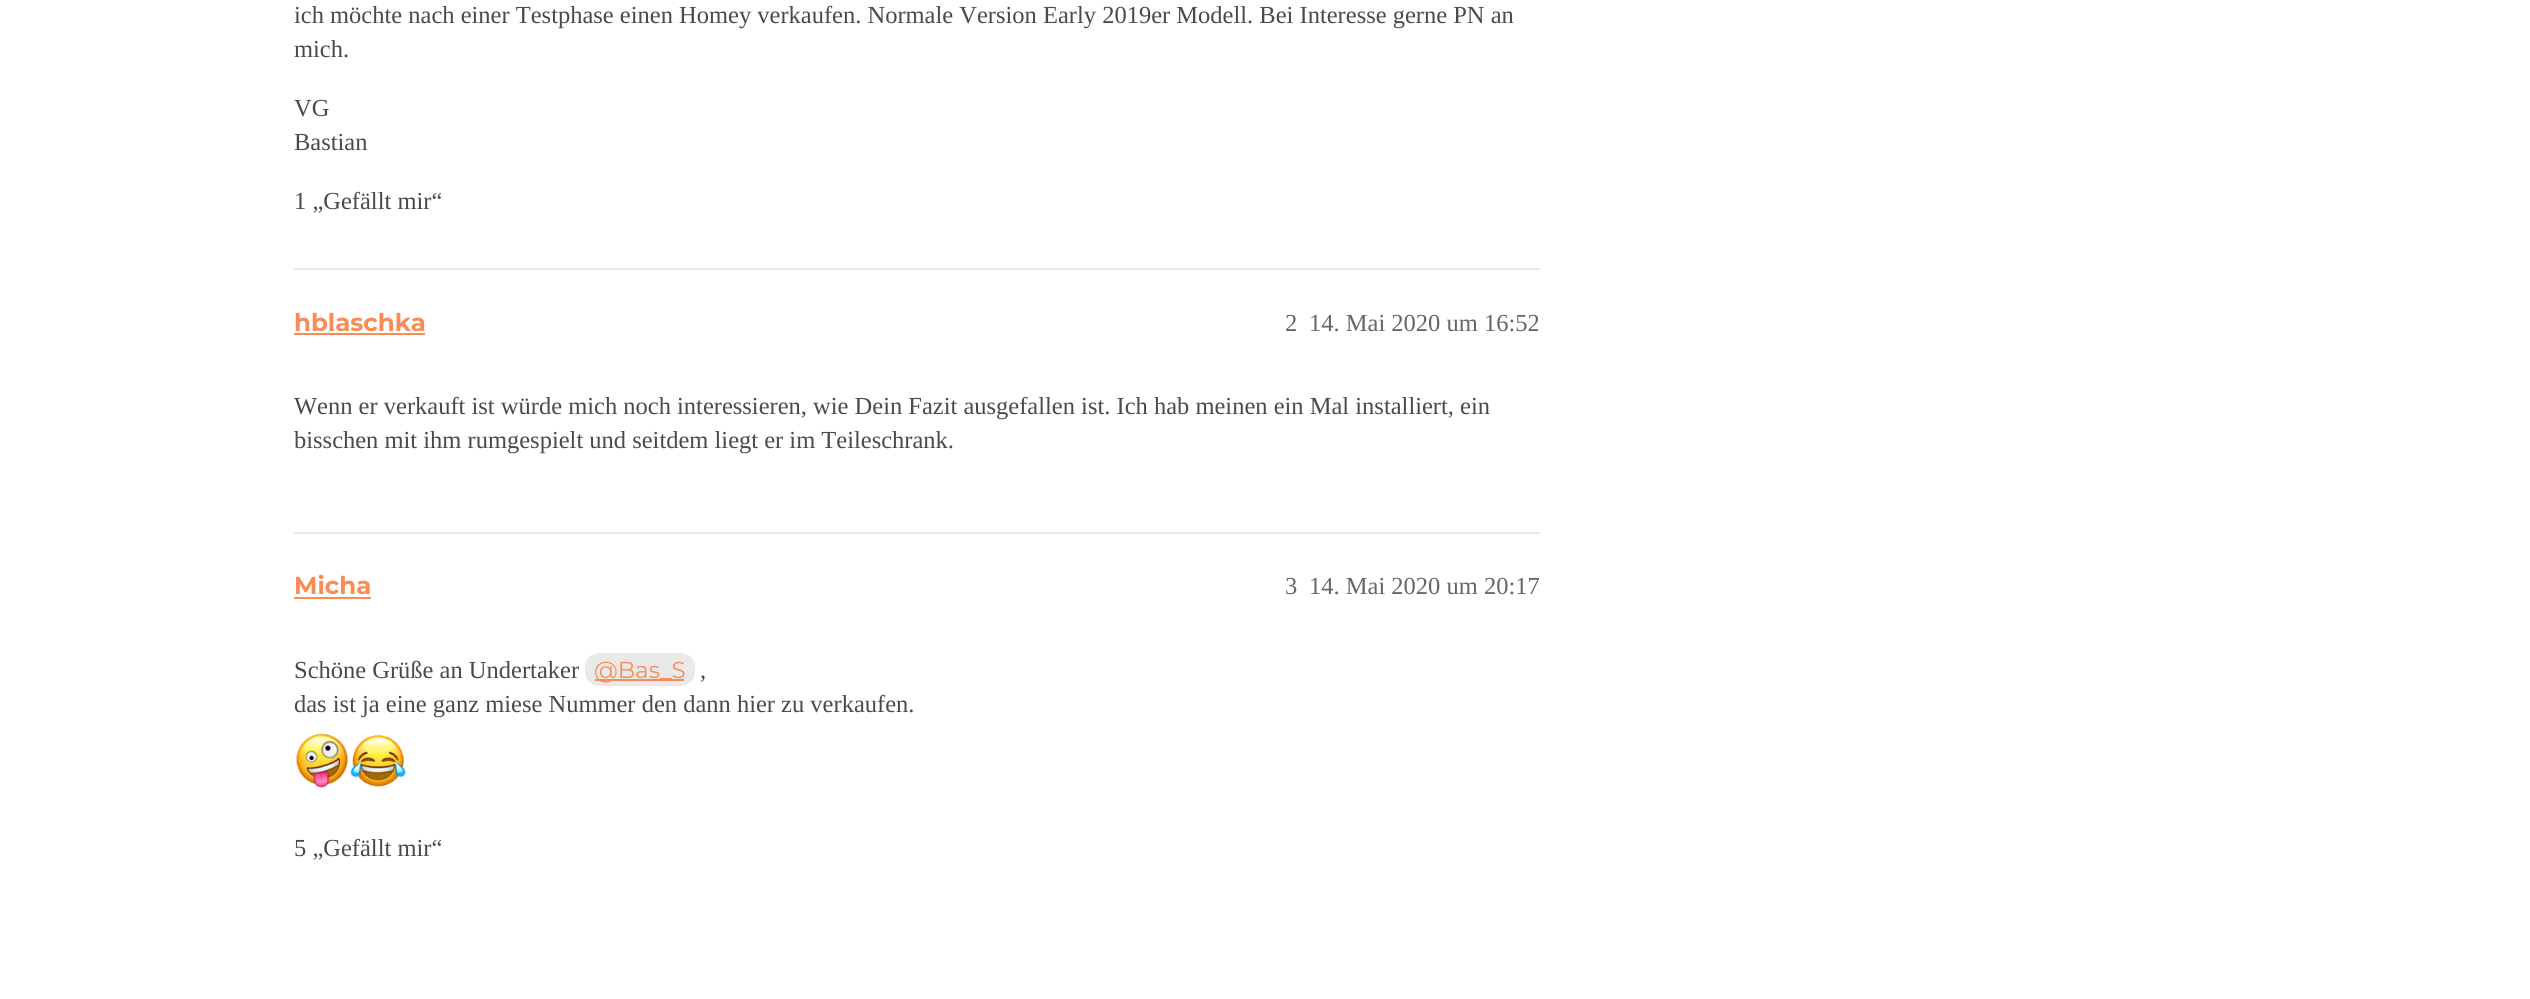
#include <cairo.h>
#include <math.h>
#include <stddef.h>


static void round_rect(cairo_t *cr, double x, double y, double w, double h, double r) {
    cairo_new_sub_path(cr);
    cairo_arc(cr, x + w - r, y + h - r, r, 0, M_PI / 2);
    cairo_arc(cr, x + r, y + h - r, r, M_PI / 2, M_PI);
    cairo_arc(cr, x + r, y + r, r, M_PI, 1.5 * M_PI);
    cairo_arc(cr, x + w - r, y + r, r, 1.5 * M_PI, 2 * M_PI);
    cairo_close_path(cr);
}

static void picture(cairo_t *cr, const char *path, double x, double y, double w, double h) {
    cairo_surface_t *image = cairo_image_surface_create_from_png(path);
    cairo_save(cr);
    cairo_set_source_surface(cr, image, x, y);
    cairo_rectangle(cr, x, y, w, h);
    cairo_fill(cr);
    cairo_restore(cr);
    cairo_surface_destroy(image);
}

int main(void) {
    cairo_surface_t *surface = cairo_image_surface_create(CAIRO_FORMAT_RGB24, 2530, 999);
    cairo_t *cr = cairo_create(surface);
    cairo_font_options_t *options = cairo_font_options_create();
    cairo_font_options_set_hint_metrics(options, CAIRO_HINT_METRICS_OFF);
    cairo_font_options_set_hint_style(options, CAIRO_HINT_STYLE_NONE);
    cairo_set_font_options(cr, options);
    cairo_set_miter_limit(cr, 4);
    cairo_set_source_rgb(cr, 1, 1, 1);
    cairo_paint(cr);
    cairo_select_font_face(cr, "Liberation Serif", CAIRO_FONT_SLANT_NORMAL, CAIRO_FONT_WEIGHT_NORMAL);
    cairo_set_font_size(cr, 24.5);
    cairo_set_source_rgb(cr, 0.29, 0.29, 0.29);
    cairo_move_to(cr, 294, 23);
    cairo_show_text(cr, "ich möchte nach einer Testphase einen Homey verkaufen. Normale Version Early 2019er Modell. Bei Interesse gerne PN an");
    cairo_move_to(cr, 294, 57);
    cairo_show_text(cr, "mich.");
    cairo_move_to(cr, 294, 116);
    cairo_show_text(cr, "VG");
    cairo_move_to(cr, 294, 150);
    cairo_show_text(cr, "Bastian");
    cairo_move_to(cr, 294, 209);
    cairo_show_text(cr, "1 „Gefällt mir“");
    cairo_set_source_rgb(cr, 0.914, 0.914, 0.914);
    cairo_rectangle(cr, 294, 268, 1246, 2);
    cairo_fill(cr);
    cairo_select_font_face(cr, "Montserrat", CAIRO_FONT_SLANT_NORMAL, CAIRO_FONT_WEIGHT_BOLD);
    cairo_set_source_rgb(cr, 0.98, 0.545, 0.329);
    cairo_move_to(cr, 294, 331);
    cairo_show_text(cr, "hblaschka");
    cairo_rectangle(cr, 294, 333, 131, 2);
    cairo_fill(cr);
    cairo_select_font_face(cr, "Liberation Serif", CAIRO_FONT_SLANT_NORMAL, CAIRO_FONT_WEIGHT_NORMAL);
    cairo_set_source_rgb(cr, 0.4, 0.4, 0.4);
    cairo_move_to(cr, 1285, 331);
    cairo_show_text(cr, "2");
    cairo_move_to(cr, 1309, 331);
    cairo_show_text(cr, "14. Mai 2020 um 16:52");
    cairo_set_source_rgb(cr, 0.29, 0.29, 0.29);
    cairo_move_to(cr, 294, 414);
    cairo_show_text(cr, "Wenn er verkauft ist würde mich noch interessieren, wie Dein Fazit ausgefallen ist. Ich hab meinen ein Mal installiert, ein");
    cairo_move_to(cr, 294, 448);
    cairo_show_text(cr, "bisschen mit ihm rumgespielt und seitdem liegt er im Teileschrank.");
    cairo_set_source_rgb(cr, 0.914, 0.914, 0.914);
    cairo_rectangle(cr, 294, 532, 1246, 2);
    cairo_fill(cr);
    cairo_select_font_face(cr, "Montserrat", CAIRO_FONT_SLANT_NORMAL, CAIRO_FONT_WEIGHT_BOLD);
    cairo_set_source_rgb(cr, 0.98, 0.545, 0.329);
    cairo_move_to(cr, 294, 594);
    cairo_show_text(cr, "Micha");
    cairo_rectangle(cr, 294, 597, 77, 2);
    cairo_fill(cr);
    cairo_select_font_face(cr, "Liberation Serif", CAIRO_FONT_SLANT_NORMAL, CAIRO_FONT_WEIGHT_NORMAL);
    cairo_set_source_rgb(cr, 0.4, 0.4, 0.4);
    cairo_move_to(cr, 1285, 594);
    cairo_show_text(cr, "3");
    cairo_move_to(cr, 1309, 594);
    cairo_show_text(cr, "14. Mai 2020 um 20:17");
    cairo_set_source_rgb(cr, 0.29, 0.29, 0.29);
    cairo_move_to(cr, 294, 678);
    cairo_show_text(cr, "Schöne Grüße an Undertaker");
    cairo_set_source_rgb(cr, 0.914, 0.914, 0.914);
    round_rect(cr, 585, 653, 110, 33, 14);
    cairo_fill(cr);
    cairo_set_source_rgb(cr, 0.98, 0.545, 0.329);
    cairo_rectangle(cr, 595, 679, 89, 2);
    cairo_fill(cr);
    cairo_select_font_face(cr, "Montserrat", CAIRO_FONT_SLANT_NORMAL, CAIRO_FONT_WEIGHT_NORMAL);
    cairo_set_font_size(cr, 23);
    cairo_move_to(cr, 594, 678);
    cairo_show_text(cr, "@Bas_S");
    cairo_select_font_face(cr, "Liberation Serif", CAIRO_FONT_SLANT_NORMAL, CAIRO_FONT_WEIGHT_NORMAL);
    cairo_set_font_size(cr, 24.5);
    cairo_set_source_rgb(cr, 0.29, 0.29, 0.29);
    cairo_move_to(cr, 700, 678);
    cairo_show_text(cr, ",");
    cairo_move_to(cr, 294, 712);
    cairo_show_text(cr, "das ist ja eine ganz miese Nummer den dann hier zu verkaufen.");
    picture(cr, "img1.png", 296, 733, 52, 55);
    picture(cr, "img2.png", 350, 735, 56, 54);
    cairo_move_to(cr, 294, 856);
    cairo_show_text(cr, "5 „Gefällt mir“");
    cairo_surface_write_to_png(surface, "page.png");
    cairo_font_options_destroy(options);
    cairo_destroy(cr);
    cairo_surface_destroy(surface);
    return 0;
}
